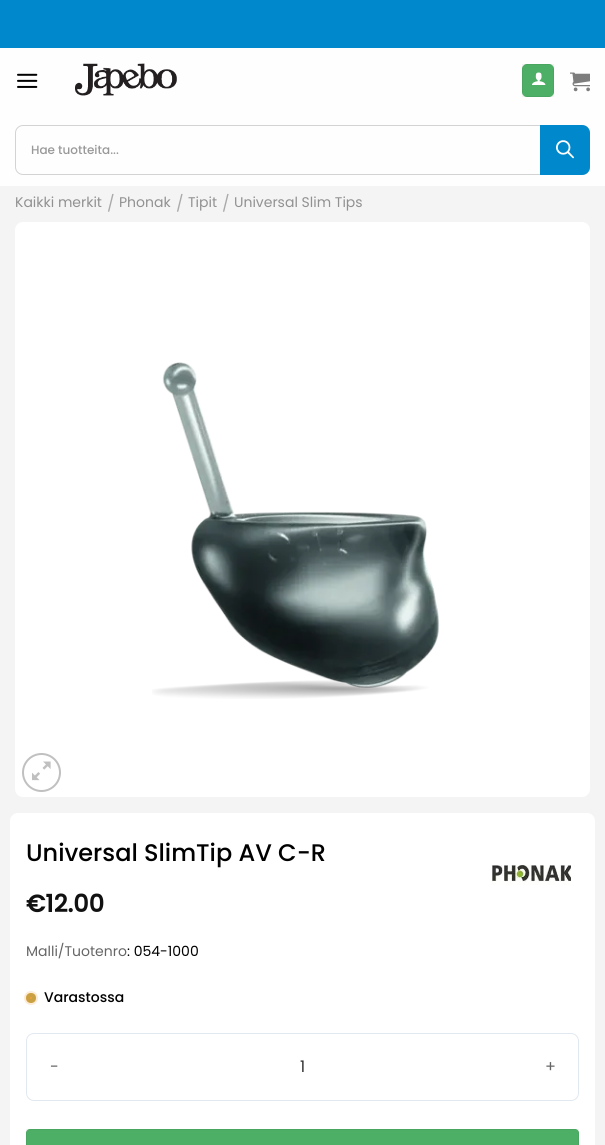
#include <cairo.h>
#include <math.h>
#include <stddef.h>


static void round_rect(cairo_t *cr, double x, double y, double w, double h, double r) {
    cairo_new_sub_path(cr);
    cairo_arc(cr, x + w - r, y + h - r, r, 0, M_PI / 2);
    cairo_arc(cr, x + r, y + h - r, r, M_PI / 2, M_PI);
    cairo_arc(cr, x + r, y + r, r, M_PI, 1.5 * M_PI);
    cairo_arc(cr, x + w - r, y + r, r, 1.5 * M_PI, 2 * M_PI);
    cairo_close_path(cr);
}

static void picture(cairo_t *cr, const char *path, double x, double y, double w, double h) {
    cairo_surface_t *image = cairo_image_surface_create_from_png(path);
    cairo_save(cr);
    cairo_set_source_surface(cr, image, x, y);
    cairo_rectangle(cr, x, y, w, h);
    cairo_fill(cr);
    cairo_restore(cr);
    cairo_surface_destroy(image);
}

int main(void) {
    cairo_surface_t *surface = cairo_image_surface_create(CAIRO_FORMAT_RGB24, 605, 1145);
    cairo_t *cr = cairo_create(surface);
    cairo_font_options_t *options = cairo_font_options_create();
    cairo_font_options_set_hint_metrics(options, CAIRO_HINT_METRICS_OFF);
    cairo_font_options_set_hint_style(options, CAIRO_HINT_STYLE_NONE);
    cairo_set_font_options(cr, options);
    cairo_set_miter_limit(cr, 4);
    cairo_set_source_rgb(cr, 0.957, 0.957, 0.957);
    cairo_paint(cr);
    cairo_set_source_rgb(cr, 0, 0.533, 0.8);
    cairo_rectangle(cr, 0, 0, 605, 48);
    cairo_fill(cr);
    cairo_set_source_rgb(cr, 0.996, 0.996, 0.996);
    cairo_rectangle(cr, 0, 48, 605, 138);
    cairo_fill(cr);
    picture(cr, "img1.png", 17, 73, 21, 15);
    picture(cr, "img2.png", 75, 63, 102, 33);
    cairo_set_source_rgb(cr, 0.302, 0.682, 0.396);
    round_rect(cr, 522, 64, 32, 33, 5);
    cairo_fill(cr);
    cairo_rectangle(cr, 522.5, 64.5, 31, 32);
    cairo_set_source_rgba(cr, 0, 0, 0, 0.05);
    cairo_set_line_width(cr, 1);
    cairo_stroke(cr);
    picture(cr, "img3.png", 532, 72, 14, 13);
    picture(cr, "img4.png", 570, 72, 20, 20);
    round_rect(cr, 15.5, 125.5, 574, 49, 7.5);
    cairo_set_source_rgb(cr, 0.827, 0.827, 0.827);
    cairo_stroke(cr);
    cairo_select_font_face(cr, "Poppins Medium", CAIRO_FONT_SLANT_NORMAL, CAIRO_FONT_WEIGHT_NORMAL);
    cairo_set_font_size(cr, 12);
    cairo_set_source_rgb(cr, 0.6, 0.6, 0.6);
    cairo_move_to(cr, 31, 154);
    cairo_show_text(cr, "Hae tuotteita...");
    cairo_set_source_rgb(cr, 0, 0.533, 0.8);
    cairo_new_path(cr);
    cairo_move_to(cr, 540, 125);
    cairo_line_to(cr, 582, 125);
    cairo_curve_to(cr, 586.5, 125, 590, 128.5, 590, 133);
    cairo_line_to(cr, 590, 167);
    cairo_curve_to(cr, 590, 171.5, 586.5, 175, 582, 175);
    cairo_line_to(cr, 540, 175);
    cairo_close_path(cr);
    cairo_fill(cr);
    picture(cr, "img5.png", 556, 140, 18, 19);
    cairo_select_font_face(cr, "Poppins", CAIRO_FONT_SLANT_NORMAL, CAIRO_FONT_WEIGHT_NORMAL);
    cairo_set_font_size(cr, 14);
    cairo_set_source_rgb(cr, 0.569, 0.569, 0.569);
    cairo_move_to(cr, 15, 207);
    cairo_show_text(cr, "Kaikki merkit");
    cairo_set_font_size(cr, 16);
    cairo_set_source_rgb(cr, 0.667, 0.667, 0.667);
    cairo_move_to(cr, 107, 209);
    cairo_show_text(cr, "/");
    cairo_set_font_size(cr, 14);
    cairo_set_source_rgb(cr, 0.569, 0.569, 0.569);
    cairo_move_to(cr, 119, 207);
    cairo_show_text(cr, "Phonak");
    cairo_set_font_size(cr, 16);
    cairo_set_source_rgb(cr, 0.667, 0.667, 0.667);
    cairo_move_to(cr, 176, 209);
    cairo_show_text(cr, "/");
    cairo_set_font_size(cr, 14);
    cairo_set_source_rgb(cr, 0.569, 0.569, 0.569);
    cairo_move_to(cr, 188, 207);
    cairo_show_text(cr, "Tipit");
    cairo_set_font_size(cr, 16);
    cairo_set_source_rgb(cr, 0.667, 0.667, 0.667);
    cairo_move_to(cr, 222, 209);
    cairo_show_text(cr, "/");
    cairo_set_font_size(cr, 14);
    cairo_set_source_rgb(cr, 0.569, 0.569, 0.569);
    cairo_move_to(cr, 234, 207);
    cairo_show_text(cr, "Universal Slim Tips");
    cairo_set_source_rgb(cr, 1, 1, 1);
    round_rect(cr, 15, 222, 575, 575, 8);
    cairo_fill(cr);
    picture(cr, "img6.png", 152, 362, 288, 337);
    cairo_arc(cr, 41.5, 772.5, 18.5, 0, 2 * M_PI);
    cairo_set_source_rgb(cr, 0.753, 0.753, 0.753);
    cairo_set_line_width(cr, 2);
    cairo_stroke(cr);
    picture(cr, "img7.png", 32, 761, 19, 20);
    cairo_set_source_rgb(cr, 1, 1, 1);
    round_rect(cr, 10, 813, 585, 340, 8);
    cairo_fill(cr);
    cairo_select_font_face(cr, "Poppins Medium", CAIRO_FONT_SLANT_NORMAL, CAIRO_FONT_WEIGHT_NORMAL);
    cairo_set_font_size(cr, 24);
    cairo_set_source_rgb(cr, 0, 0, 0);
    cairo_move_to(cr, 26, 861);
    cairo_show_text(cr, "Universal SlimTip AV C-R");
    picture(cr, "img8.png", 491, 865, 80, 20);
    cairo_select_font_face(cr, "Poppins", CAIRO_FONT_SLANT_NORMAL, CAIRO_FONT_WEIGHT_BOLD);
    cairo_set_source_rgb(cr, 0.067, 0.067, 0.067);
    cairo_move_to(cr, 26, 912);
    cairo_show_text(cr, "€12.00");
    cairo_select_font_face(cr, "Poppins", CAIRO_FONT_SLANT_NORMAL, CAIRO_FONT_WEIGHT_NORMAL);
    cairo_set_font_size(cr, 14);
    cairo_set_source_rgb(cr, 0.4, 0.4, 0.4);
    cairo_move_to(cr, 26, 956);
    cairo_show_text(cr, "Malli/Tuotenro");
    cairo_set_source_rgb(cr, 0, 0, 0);
    cairo_move_to(cr, 127, 956);
    cairo_show_text(cr, ": 054-1000");
    cairo_set_source_rgb(cr, 0.945, 0.616, 0.22);
    cairo_new_path(cr);
    cairo_arc(cr, 31, 998, 5, 0, 2 * M_PI);
    cairo_fill(cr);
    cairo_arc(cr, 31, 998, 3, 0, 2 * M_PI);
    cairo_set_source_rgba(cr, 0, 0.714, 0.478, 0.2);
    cairo_set_line_width(cr, 4);
    cairo_stroke(cr);
    cairo_set_source_rgba(cr, 0.945, 0.616, 0.22, 0.2);
    cairo_arc(cr, 31, 998, 7, 0, 2 * M_PI);
    cairo_fill(cr);
    cairo_select_font_face(cr, "Poppins Medium", CAIRO_FONT_SLANT_NORMAL, CAIRO_FONT_WEIGHT_NORMAL);
    cairo_set_source_rgb(cr, 0, 0, 0);
    cairo_move_to(cr, 44, 1002);
    cairo_show_text(cr, "Varastossa");
    round_rect(cr, 26.5, 1033.5, 552, 67, 7.5);
    cairo_set_source_rgb(cr, 0.886, 0.91, 0.941);
    cairo_set_line_width(cr, 1);
    cairo_stroke(cr);
    cairo_select_font_face(cr, "Poppins", CAIRO_FONT_SLANT_NORMAL, CAIRO_FONT_WEIGHT_NORMAL);
    cairo_set_font_size(cr, 16);
    cairo_set_source_rgb(cr, 0.4, 0.4, 0.4);
    cairo_move_to(cr, 50, 1072);
    cairo_show_text(cr, "-");
    cairo_set_source_rgb(cr, 0.2, 0.2, 0.2);
    cairo_move_to(cr, 300, 1072);
    cairo_show_text(cr, "1");
    cairo_set_source_rgb(cr, 0.4, 0.4, 0.4);
    cairo_move_to(cr, 545, 1072);
    cairo_show_text(cr, "+");
    cairo_set_source_rgb(cr, 0.302, 0.682, 0.396);
    round_rect(cr, 26, 1129, 553, 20, 4);
    cairo_fill(cr);
    cairo_rectangle(cr, 26.5, 1129.5, 552, 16);
    cairo_set_source_rgba(cr, 0, 0, 0, 0.05);
    cairo_stroke(cr);
    cairo_surface_write_to_png(surface, "page.png");
    cairo_font_options_destroy(options);
    cairo_destroy(cr);
    cairo_surface_destroy(surface);
    return 0;
}
